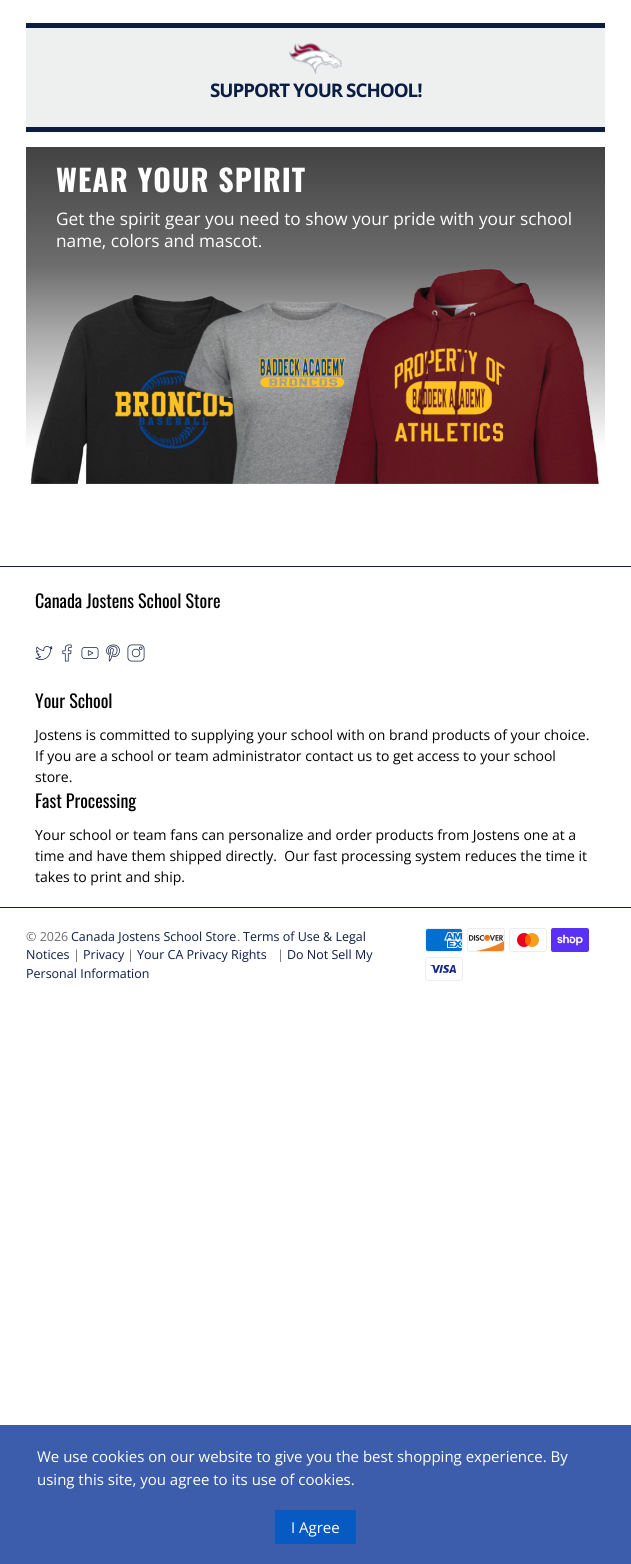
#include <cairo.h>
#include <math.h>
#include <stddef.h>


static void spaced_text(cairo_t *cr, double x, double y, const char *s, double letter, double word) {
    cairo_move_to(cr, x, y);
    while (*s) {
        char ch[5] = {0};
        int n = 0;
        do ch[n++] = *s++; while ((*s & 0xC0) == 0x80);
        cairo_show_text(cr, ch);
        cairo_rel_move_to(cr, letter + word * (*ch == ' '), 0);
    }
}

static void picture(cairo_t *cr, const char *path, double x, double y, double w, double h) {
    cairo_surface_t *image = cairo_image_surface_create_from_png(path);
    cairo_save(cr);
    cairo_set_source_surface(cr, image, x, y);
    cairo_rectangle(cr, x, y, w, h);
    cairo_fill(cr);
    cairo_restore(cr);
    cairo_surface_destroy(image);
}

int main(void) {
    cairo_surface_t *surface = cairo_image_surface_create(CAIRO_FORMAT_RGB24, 631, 1564);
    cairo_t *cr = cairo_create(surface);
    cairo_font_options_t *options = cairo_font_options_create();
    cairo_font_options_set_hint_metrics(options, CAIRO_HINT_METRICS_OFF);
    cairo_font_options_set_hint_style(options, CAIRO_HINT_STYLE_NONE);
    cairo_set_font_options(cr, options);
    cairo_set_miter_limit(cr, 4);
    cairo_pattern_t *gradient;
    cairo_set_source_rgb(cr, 1, 1, 1);
    cairo_paint(cr);
    cairo_set_source_rgb(cr, 0.933, 0.937, 0.937);
    cairo_rectangle(cr, 26, 28, 579, 99);
    cairo_fill(cr);
    cairo_set_source_rgb(cr, 0.047, 0.114, 0.267);
    cairo_rectangle(cr, 26, 23, 579, 5);
    cairo_fill(cr);
    cairo_rectangle(cr, 26, 127, 579, 5);
    cairo_fill(cr);
    picture(cr, "img1.png", 289, 43, 53, 31);
    cairo_select_font_face(cr, "Open Sans", CAIRO_FONT_SLANT_NORMAL, CAIRO_FONT_WEIGHT_BOLD);
    cairo_set_font_size(cr, 18.75);
    spaced_text(cr, 210, 97, "SUPPORT YOUR SCHOOL!", -1, 0);
    gradient = cairo_pattern_create_linear(316, 147, 316, 484);
    cairo_pattern_add_color_stop_rgba(gradient, 0, 0.259, 0.259, 0.263, 1);
    cairo_pattern_add_color_stop_rgba(gradient, 0.35, 0.427, 0.427, 0.431, 1);
    cairo_pattern_add_color_stop_rgba(gradient, 0.55, 0.663, 0.663, 0.663, 1);
    cairo_pattern_add_color_stop_rgba(gradient, 0.9, 1, 1, 1, 1);
    cairo_set_source(cr, gradient);
    cairo_pattern_destroy(gradient);
    cairo_rectangle(cr, 26, 147, 579, 300);
    cairo_fill(cr);
    cairo_select_font_face(cr, "Oswald", CAIRO_FONT_SLANT_NORMAL, CAIRO_FONT_WEIGHT_BOLD);
    cairo_set_font_size(cr, 30);
    cairo_set_source_rgb(cr, 1, 1, 1);
    spaced_text(cr, 56, 192, "WEAR YOUR SPIRIT", 1, 0);
    cairo_select_font_face(cr, "Open Sans", CAIRO_FONT_SLANT_NORMAL, CAIRO_FONT_WEIGHT_NORMAL);
    cairo_set_font_size(cr, 17.25);
    cairo_move_to(cr, 56, 225);
    cairo_show_text(cr, "Get the spirit gear you need to show your pride with your school");
    cairo_move_to(cr, 56, 247);
    cairo_show_text(cr, "name, colors and mascot.");
    picture(cr, "img2.png", 30, 268, 569, 216);
    cairo_set_source_rgb(cr, 0.059, 0.114, 0.255);
    cairo_rectangle(cr, 0, 566, 631, 1);
    cairo_fill(cr);
    cairo_rectangle(cr, 0, 907, 631, 1);
    cairo_fill(cr);
    cairo_select_font_face(cr, "Oswald", CAIRO_FONT_SLANT_NORMAL, CAIRO_FONT_WEIGHT_NORMAL);
    cairo_set_font_size(cr, 18);
    cairo_set_source_rgb(cr, 0, 0, 0);
    cairo_move_to(cr, 35, 608);
    cairo_show_text(cr, "Canada Jostens School Store");
    picture(cr, "img3.png", 35, 646, 18, 14);
    picture(cr, "img4.png", 62, 644, 10, 18);
    picture(cr, "img5.png", 81, 647, 18, 12);
    picture(cr, "img6.png", 106, 644, 14, 18);
    picture(cr, "img7.png", 127, 644, 18, 18);
    cairo_move_to(cr, 35, 708);
    cairo_show_text(cr, "Your School");
    cairo_select_font_face(cr, "Open Sans", CAIRO_FONT_SLANT_NORMAL, CAIRO_FONT_WEIGHT_NORMAL);
    cairo_set_font_size(cr, 14);
    cairo_move_to(cr, 35, 740);
    cairo_show_text(cr, "Jostens is committed to supplying your school with on brand products of your choice.");
    cairo_move_to(cr, 35, 761);
    cairo_show_text(cr, "If you are a school or team administrator contact us to get access to your school");
    cairo_move_to(cr, 35, 782);
    cairo_show_text(cr, "store.");
    cairo_select_font_face(cr, "Oswald", CAIRO_FONT_SLANT_NORMAL, CAIRO_FONT_WEIGHT_NORMAL);
    cairo_set_font_size(cr, 18);
    cairo_move_to(cr, 35, 808);
    cairo_show_text(cr, "Fast Processing");
    cairo_select_font_face(cr, "Open Sans", CAIRO_FONT_SLANT_NORMAL, CAIRO_FONT_WEIGHT_NORMAL);
    cairo_set_font_size(cr, 14);
    cairo_move_to(cr, 35, 840);
    cairo_show_text(cr, "Your school or team fans can personalize and order products from Jostens one at a");
    cairo_move_to(cr, 35, 861);
    cairo_show_text(cr, "time and have them shipped directly.  Our fast processing system reduces the time it");
    cairo_move_to(cr, 35, 882);
    cairo_show_text(cr, "takes to print and ship.");
    cairo_set_font_size(cr, 12.5);
    cairo_set_source_rgb(cr, 0.424, 0.424, 0.424);
    cairo_move_to(cr, 26, 941);
    cairo_show_text(cr, "© 2026");
    cairo_set_source_rgb(cr, 0.047, 0.114, 0.267);
    cairo_move_to(cr, 71, 941);
    cairo_show_text(cr, "Canada Jostens School Store");
    cairo_set_source_rgb(cr, 0.424, 0.424, 0.424);
    cairo_move_to(cr, 237, 941);
    cairo_show_text(cr, ".");
    cairo_set_source_rgb(cr, 0.047, 0.114, 0.267);
    cairo_move_to(cr, 243, 941);
    cairo_show_text(cr, "Terms of Use & Legal");
    cairo_move_to(cr, 26, 959);
    cairo_show_text(cr, "Notices");
    cairo_set_source_rgb(cr, 0.424, 0.424, 0.424);
    cairo_move_to(cr, 73, 959);
    cairo_show_text(cr, "|");
    cairo_set_source_rgb(cr, 0.047, 0.114, 0.267);
    cairo_move_to(cr, 83, 959);
    cairo_show_text(cr, "Privacy");
    cairo_set_source_rgb(cr, 0.424, 0.424, 0.424);
    cairo_move_to(cr, 127, 959);
    cairo_show_text(cr, "|");
    cairo_set_source_rgb(cr, 0.047, 0.114, 0.267);
    cairo_move_to(cr, 137, 959);
    cairo_show_text(cr, "Your CA Privacy Rights");
    cairo_set_source_rgb(cr, 0.424, 0.424, 0.424);
    cairo_move_to(cr, 277, 959);
    cairo_show_text(cr, "|");
    cairo_set_source_rgb(cr, 0.047, 0.114, 0.267);
    cairo_move_to(cr, 287, 959);
    cairo_show_text(cr, "Do Not Sell My");
    cairo_move_to(cr, 26, 978);
    cairo_show_text(cr, "Personal Information");
    picture(cr, "img8.png", 425, 928, 38, 24);
    picture(cr, "img9.png", 467, 928, 38, 24);
    picture(cr, "img10.png", 509, 928, 38, 24);
    picture(cr, "img11.png", 551, 928, 38, 24);
    picture(cr, "img12.png", 425, 957, 38, 24);
    cairo_set_source_rgb(cr, 0.235, 0.365, 0.675);
    cairo_rectangle(cr, 0, 1425, 631, 139);
    cairo_fill(cr);
    cairo_set_font_size(cr, 15);
    cairo_set_source_rgb(cr, 1, 1, 1);
    cairo_move_to(cr, 37, 1462);
    cairo_show_text(cr, "We use cookies on our website to give you the best shopping experience. By");
    cairo_move_to(cr, 37, 1485);
    cairo_show_text(cr, "using this site, you agree to its use of cookies.");
    cairo_set_source_rgb(cr, 0.035, 0.353, 0.765);
    cairo_rectangle(cr, 275, 1510, 81, 34);
    cairo_fill(cr);
    cairo_set_source_rgb(cr, 1, 1, 1);
    cairo_move_to(cr, 291, 1533);
    cairo_show_text(cr, "I Agree");
    cairo_surface_write_to_png(surface, "page.png");
    cairo_font_options_destroy(options);
    cairo_destroy(cr);
    cairo_surface_destroy(surface);
    return 0;
}
